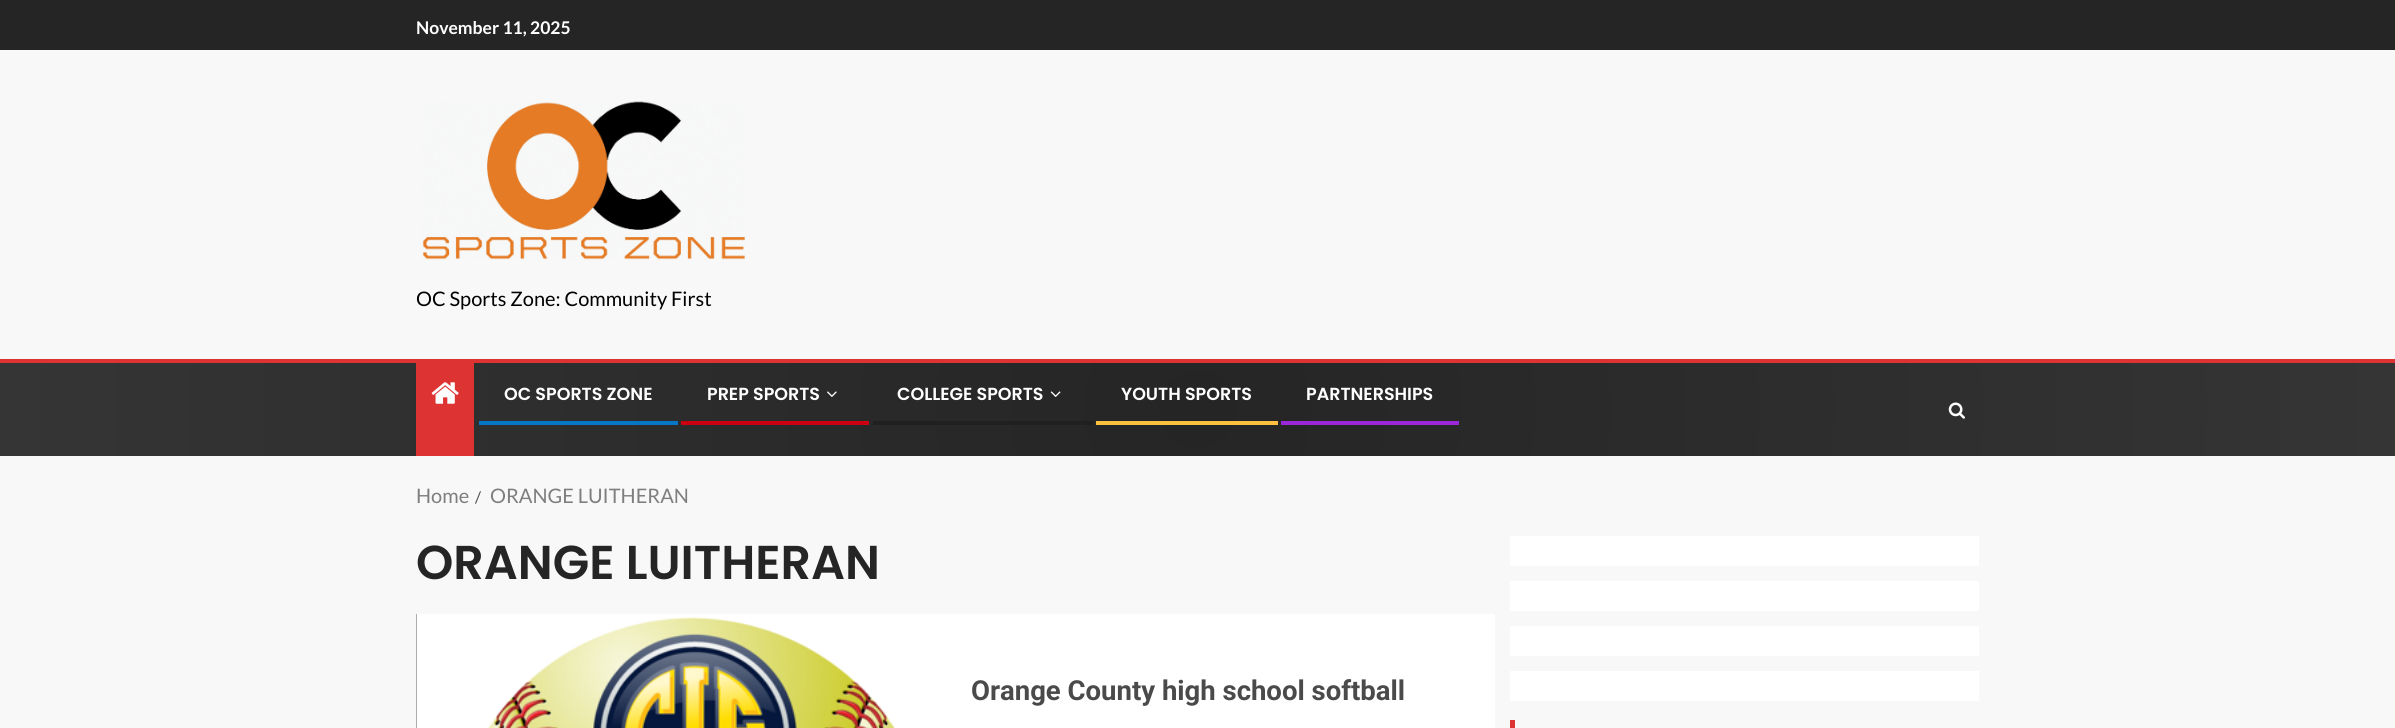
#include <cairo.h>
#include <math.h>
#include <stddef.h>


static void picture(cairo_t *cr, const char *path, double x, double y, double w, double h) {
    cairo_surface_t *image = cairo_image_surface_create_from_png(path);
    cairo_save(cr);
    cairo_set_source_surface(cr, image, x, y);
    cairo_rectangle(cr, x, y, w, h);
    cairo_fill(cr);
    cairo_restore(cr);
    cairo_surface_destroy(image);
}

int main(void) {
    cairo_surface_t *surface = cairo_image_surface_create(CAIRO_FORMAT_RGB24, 2395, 728);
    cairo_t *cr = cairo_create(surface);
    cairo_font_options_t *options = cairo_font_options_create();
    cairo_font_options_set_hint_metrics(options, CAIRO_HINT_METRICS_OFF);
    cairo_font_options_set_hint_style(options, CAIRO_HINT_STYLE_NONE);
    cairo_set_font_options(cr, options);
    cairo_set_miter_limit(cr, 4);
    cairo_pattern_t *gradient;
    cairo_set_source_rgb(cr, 0.969, 0.969, 0.969);
    cairo_paint(cr);
    cairo_set_source_rgb(cr, 0.145, 0.145, 0.145);
    cairo_rectangle(cr, 0, 0, 2395, 50);
    cairo_fill(cr);
    cairo_select_font_face(cr, "Lato", CAIRO_FONT_SLANT_NORMAL, CAIRO_FONT_WEIGHT_BOLD);
    cairo_set_font_size(cr, 17.5);
    cairo_set_source_rgb(cr, 1, 1, 1);
    cairo_move_to(cr, 416, 34);
    cairo_show_text(cr, "November 11, 2025");
    picture(cr, "img1.png", 422, 101, 323, 159);
    cairo_select_font_face(cr, "Lato", CAIRO_FONT_SLANT_NORMAL, CAIRO_FONT_WEIGHT_NORMAL);
    cairo_set_font_size(cr, 20);
    cairo_set_source_rgb(cr, 0, 0, 0);
    cairo_move_to(cr, 416, 306);
    cairo_show_text(cr, "OC Sports Zone: Community First");
    gradient = cairo_pattern_create_radial(1198, 409, 0, 1198, 409, 1198);
    cairo_pattern_add_color_stop_rgba(gradient, 0, 0.145, 0.145, 0.145, 1);
    cairo_pattern_add_color_stop_rgba(gradient, 1, 0.208, 0.208, 0.208, 1);
    cairo_set_source(cr, gradient);
    cairo_pattern_destroy(gradient);
    cairo_rectangle(cr, 0, 363, 2395, 93);
    cairo_fill(cr);
    cairo_set_source_rgb(cr, 0.867, 0.2, 0.2);
    cairo_rectangle(cr, 0, 359, 2395, 4);
    cairo_fill(cr);
    cairo_rectangle(cr, 416, 363, 58, 93);
    cairo_fill(cr);
    picture(cr, "img2.png", 431, 382, 28, 22);
    cairo_select_font_face(cr, "Poppins SemiBold", CAIRO_FONT_SLANT_NORMAL, CAIRO_FONT_WEIGHT_NORMAL);
    cairo_set_font_size(cr, 17.5);
    cairo_set_source_rgb(cr, 1, 1, 1);
    cairo_move_to(cr, 504, 400);
    cairo_show_text(cr, "OC SPORTS ZONE");
    cairo_set_source_rgb(cr, 0.027, 0.463, 0.776);
    cairo_rectangle(cr, 479, 421, 199, 4);
    cairo_fill(cr);
    cairo_set_source_rgb(cr, 1, 1, 1);
    cairo_move_to(cr, 707, 400);
    cairo_show_text(cr, "PREP SPORTS");
    picture(cr, "img3.png", 827, 391, 10, 6);
    cairo_set_source_rgb(cr, 0.8, 0, 0.063);
    cairo_rectangle(cr, 681, 421, 188, 4);
    cairo_fill(cr);
    cairo_set_source_rgb(cr, 1, 1, 1);
    cairo_move_to(cr, 897, 400);
    cairo_show_text(cr, "COLLEGE SPORTS");
    picture(cr, "img4.png", 1050, 391, 11, 6);
    cairo_set_source_rgb(cr, 0.125, 0.125, 0.125);
    cairo_rectangle(cr, 873, 421, 220, 4);
    cairo_fill(cr);
    cairo_set_source_rgb(cr, 1, 1, 1);
    cairo_move_to(cr, 1121, 400);
    cairo_show_text(cr, "YOUTH SPORTS");
    cairo_set_source_rgb(cr, 1, 0.749, 0.247);
    cairo_rectangle(cr, 1096, 421, 182, 4);
    cairo_fill(cr);
    cairo_set_source_rgb(cr, 1, 1, 1);
    cairo_move_to(cr, 1306, 400);
    cairo_show_text(cr, "PARTNERSHIPS");
    cairo_set_source_rgb(cr, 0.612, 0.153, 0.851);
    cairo_rectangle(cr, 1281, 421, 178, 4);
    cairo_fill(cr);
    picture(cr, "img5.png", 1948, 402, 17, 17);
    cairo_select_font_face(cr, "Lato", CAIRO_FONT_SLANT_NORMAL, CAIRO_FONT_WEIGHT_NORMAL);
    cairo_set_font_size(cr, 20);
    cairo_set_source_rgb(cr, 0.494, 0.494, 0.494);
    cairo_move_to(cr, 416, 503);
    cairo_show_text(cr, "Home");
    cairo_set_font_size(cr, 16);
    cairo_set_source_rgb(cr, 0.29, 0.29, 0.29);
    cairo_move_to(cr, 475, 503);
    cairo_show_text(cr, "/");
    cairo_set_font_size(cr, 20);
    cairo_set_source_rgb(cr, 0.494, 0.494, 0.494);
    cairo_move_to(cr, 490, 503);
    cairo_show_text(cr, "ORANGE LUITHERAN");
    cairo_select_font_face(cr, "Poppins SemiBold", CAIRO_FONT_SLANT_NORMAL, CAIRO_FONT_WEIGHT_NORMAL);
    cairo_set_font_size(cr, 47.5);
    cairo_set_source_rgb(cr, 0.145, 0.145, 0.145);
    cairo_move_to(cr, 416, 579);
    cairo_show_text(cr, "ORANGE LUITHERAN");
    cairo_set_source_rgb(cr, 1, 1, 1);
    cairo_rectangle(cr, 956, 614, 539, 114);
    cairo_fill(cr);
    cairo_set_source_rgb(cr, 0.251, 0.251, 0.251);
    cairo_rectangle(cr, 416, 614, 1, 114);
    cairo_fill(cr);
    picture(cr, "img6.png", 416, 614, 540, 114);
    cairo_select_font_face(cr, "Roboto", CAIRO_FONT_SLANT_NORMAL, CAIRO_FONT_WEIGHT_BOLD);
    cairo_set_font_size(cr, 27.5);
    cairo_set_source_rgb(cr, 0.29, 0.29, 0.29);
    cairo_move_to(cr, 971, 700);
    cairo_show_text(cr, "Orange County high school softball");
    cairo_set_source_rgb(cr, 1, 1, 1);
    cairo_rectangle(cr, 1510, 536, 469, 30);
    cairo_fill(cr);
    cairo_rectangle(cr, 1510, 581, 469, 30);
    cairo_fill(cr);
    cairo_rectangle(cr, 1510, 626, 469, 30);
    cairo_fill(cr);
    cairo_rectangle(cr, 1510, 671, 469, 30);
    cairo_fill(cr);
    cairo_set_source_rgb(cr, 0.867, 0.2, 0.2);
    cairo_rectangle(cr, 1510, 720, 5, 8);
    cairo_fill(cr);
    cairo_surface_write_to_png(surface, "page.png");
    cairo_font_options_destroy(options);
    cairo_destroy(cr);
    cairo_surface_destroy(surface);
    return 0;
}
